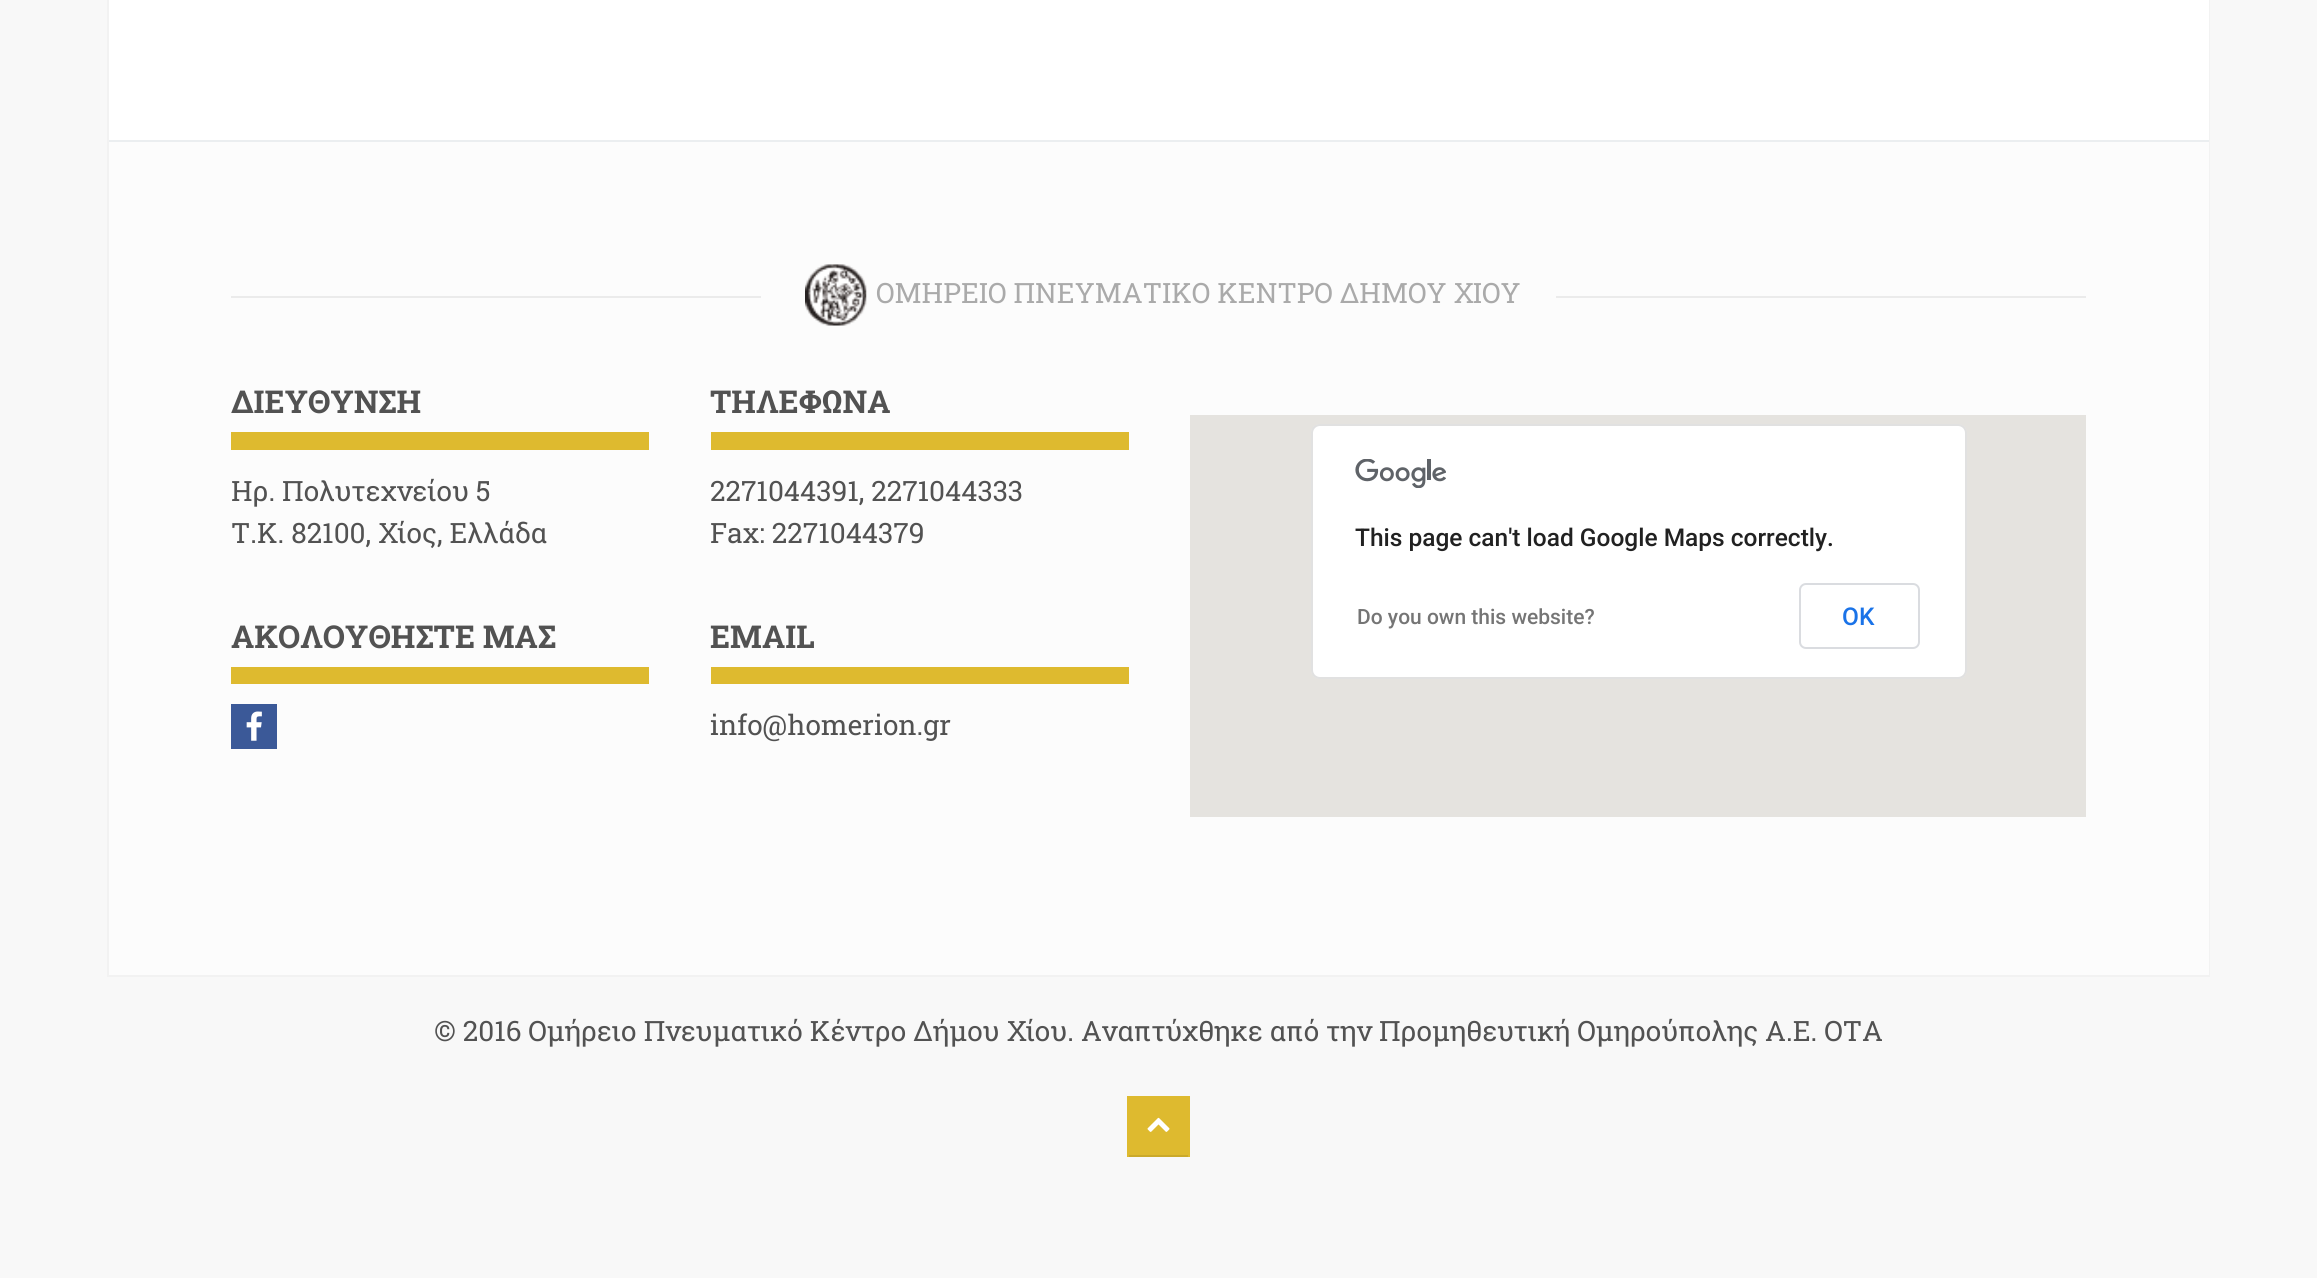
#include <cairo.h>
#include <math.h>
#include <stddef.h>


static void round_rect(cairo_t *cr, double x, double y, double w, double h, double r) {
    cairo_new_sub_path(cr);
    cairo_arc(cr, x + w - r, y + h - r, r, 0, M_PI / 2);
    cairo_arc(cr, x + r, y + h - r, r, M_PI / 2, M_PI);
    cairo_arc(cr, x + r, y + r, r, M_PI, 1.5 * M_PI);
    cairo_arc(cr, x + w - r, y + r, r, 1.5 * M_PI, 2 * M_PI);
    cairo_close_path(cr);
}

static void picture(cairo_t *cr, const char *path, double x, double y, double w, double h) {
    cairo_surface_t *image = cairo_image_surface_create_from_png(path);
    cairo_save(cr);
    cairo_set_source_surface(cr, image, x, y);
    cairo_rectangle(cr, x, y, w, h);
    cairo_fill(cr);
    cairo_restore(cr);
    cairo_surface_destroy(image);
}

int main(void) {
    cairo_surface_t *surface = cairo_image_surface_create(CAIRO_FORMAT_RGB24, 2317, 1278);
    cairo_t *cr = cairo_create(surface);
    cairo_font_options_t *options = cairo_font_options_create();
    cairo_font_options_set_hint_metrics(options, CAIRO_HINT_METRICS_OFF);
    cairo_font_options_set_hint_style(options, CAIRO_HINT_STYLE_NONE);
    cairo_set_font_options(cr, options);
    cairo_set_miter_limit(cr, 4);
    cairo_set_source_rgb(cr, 0.969, 0.969, 0.969);
    cairo_paint(cr);
    cairo_rectangle(cr, 108, -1, 2101, 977);
    cairo_set_source_rgba(cr, 0.184, 0.192, 0.208, 0.03);
    cairo_stroke(cr);
    cairo_set_source_rgb(cr, 1, 1, 1);
    cairo_rectangle(cr, 109, 0, 2100, 140);
    cairo_fill(cr);
    cairo_set_source_rgb(cr, 0.988, 0.988, 0.988);
    cairo_rectangle(cr, 109, 142, 2100, 833);
    cairo_fill(cr);
    cairo_set_source_rgb(cr, 0.918, 0.933, 0.941);
    cairo_rectangle(cr, 109, 140, 2100, 2);
    cairo_fill(cr);
    cairo_set_source_rgb(cr, 0.918, 0.918, 0.918);
    cairo_rectangle(cr, 231, 296, 530, 2);
    cairo_fill(cr);
    picture(cr, "img1.png", 805, 264, 62, 62);
    cairo_select_font_face(cr, "Roboto Slab", CAIRO_FONT_SLANT_NORMAL, CAIRO_FONT_WEIGHT_NORMAL);
    cairo_set_font_size(cr, 28);
    cairo_set_source_rgb(cr, 0.667, 0.667, 0.667);
    cairo_move_to(cr, 876, 303);
    cairo_show_text(cr, "ΟΜΗΡΕΙΟ ΠΝΕΥΜΑΤΙΚΟ ΚΕΝΤΡΟ ΔΗΜΟΥ ΧΙΟΥ");
    cairo_set_source_rgb(cr, 0.918, 0.918, 0.918);
    cairo_rectangle(cr, 1556, 296, 530, 2);
    cairo_fill(cr);
    cairo_select_font_face(cr, "Roboto Slab", CAIRO_FONT_SLANT_NORMAL, CAIRO_FONT_WEIGHT_BOLD);
    cairo_set_font_size(cr, 31.5);
    cairo_set_source_rgb(cr, 0.322, 0.322, 0.322);
    cairo_move_to(cr, 231, 413);
    cairo_show_text(cr, "ΔΙΕΥΘΥΝΣΗ");
    cairo_set_source_rgb(cr, 0.871, 0.729, 0.184);
    cairo_rectangle(cr, 231, 432, 418, 18);
    cairo_fill(cr);
    cairo_select_font_face(cr, "Roboto Slab", CAIRO_FONT_SLANT_NORMAL, CAIRO_FONT_WEIGHT_NORMAL);
    cairo_set_font_size(cr, 28);
    cairo_set_source_rgb(cr, 0.322, 0.322, 0.322);
    cairo_move_to(cr, 231, 501);
    cairo_show_text(cr, "Ηρ. Πολυτεχνείου 5");
    cairo_move_to(cr, 231, 543);
    cairo_show_text(cr, "Τ.Κ. 82100, Χίος, Ελλάδα");
    cairo_select_font_face(cr, "Roboto Slab", CAIRO_FONT_SLANT_NORMAL, CAIRO_FONT_WEIGHT_BOLD);
    cairo_set_font_size(cr, 31.5);
    cairo_move_to(cr, 231, 648);
    cairo_show_text(cr, "ΑΚΟΛΟΥΘΗΣΤΕ ΜΑΣ");
    cairo_set_source_rgb(cr, 0.871, 0.729, 0.184);
    cairo_rectangle(cr, 231, 667, 418, 17);
    cairo_fill(cr);
    cairo_set_source_rgb(cr, 0.231, 0.349, 0.596);
    cairo_rectangle(cr, 231, 704, 46, 45);
    cairo_fill(cr);
    picture(cr, "img2.png", 246, 711, 16, 30);
    cairo_set_source_rgb(cr, 0.322, 0.322, 0.322);
    cairo_move_to(cr, 710, 413);
    cairo_show_text(cr, "ΤΗΛΕΦΩΝΑ");
    cairo_set_source_rgb(cr, 0.871, 0.729, 0.184);
    cairo_rectangle(cr, 711, 432, 418, 18);
    cairo_fill(cr);
    cairo_select_font_face(cr, "Roboto Slab", CAIRO_FONT_SLANT_NORMAL, CAIRO_FONT_WEIGHT_NORMAL);
    cairo_set_font_size(cr, 28);
    cairo_set_source_rgb(cr, 0.322, 0.322, 0.322);
    cairo_move_to(cr, 710, 501);
    cairo_show_text(cr, "2271044391, 2271044333");
    cairo_move_to(cr, 710, 543);
    cairo_show_text(cr, "Fax: 2271044379");
    cairo_select_font_face(cr, "Roboto Slab", CAIRO_FONT_SLANT_NORMAL, CAIRO_FONT_WEIGHT_BOLD);
    cairo_set_font_size(cr, 31.5);
    cairo_move_to(cr, 710, 648);
    cairo_show_text(cr, "EMAIL");
    cairo_set_source_rgb(cr, 0.871, 0.729, 0.184);
    cairo_rectangle(cr, 711, 667, 418, 17);
    cairo_fill(cr);
    cairo_select_font_face(cr, "Roboto Slab", CAIRO_FONT_SLANT_NORMAL, CAIRO_FONT_WEIGHT_NORMAL);
    cairo_set_font_size(cr, 28);
    cairo_set_source_rgb(cr, 0.322, 0.322, 0.322);
    cairo_move_to(cr, 710, 735);
    cairo_show_text(cr, "info@homerion.gr");
    cairo_set_source_rgb(cr, 0.898, 0.89, 0.875);
    cairo_rectangle(cr, 1190, 415, 896, 402);
    cairo_fill(cr);
    cairo_set_source_rgb(cr, 1, 1, 1);
    round_rect(cr, 1311, 424, 656, 255, 9);
    cairo_fill(cr);
    round_rect(cr, 1312, 425, 654, 253, 8);
    cairo_set_source_rgba(cr, 0, 0, 0, 0.12);
    cairo_stroke(cr);
    picture(cr, "img3.png", 1355, 459, 91, 29);
    cairo_select_font_face(cr, "Roboto Medium", CAIRO_FONT_SLANT_NORMAL, CAIRO_FONT_WEIGHT_NORMAL);
    cairo_set_font_size(cr, 24.5);
    cairo_set_source_rgb(cr, 0.129, 0.129, 0.129);
    cairo_move_to(cr, 1355, 546);
    cairo_show_text(cr, "This page can't load Google Maps correctly.");
    cairo_set_font_size(cr, 21);
    cairo_set_source_rgb(cr, 0.459, 0.459, 0.459);
    cairo_move_to(cr, 1357, 624);
    cairo_show_text(cr, "Do you own this website?");
    round_rect(cr, 1800, 584, 119, 64, 6);
    cairo_set_source_rgb(cr, 0.855, 0.863, 0.878);
    cairo_stroke(cr);
    cairo_set_font_size(cr, 24.5);
    cairo_set_source_rgb(cr, 0.102, 0.451, 0.91);
    cairo_move_to(cr, 1842, 625);
    cairo_show_text(cr, "OK");
    cairo_select_font_face(cr, "Roboto Slab", CAIRO_FONT_SLANT_NORMAL, CAIRO_FONT_WEIGHT_NORMAL);
    cairo_set_font_size(cr, 28);
    cairo_set_source_rgb(cr, 0.322, 0.322, 0.322);
    cairo_move_to(cr, 434, 1041);
    cairo_show_text(cr, "© 2016 Ομήρειο Πνευματικό Κέντρο Δήμου Χίου. Αναπτύχθηκε από την Προμηθευτική Ομηρούπολης Α.Ε. ΟΤΑ");
    cairo_set_source_rgb(cr, 0.871, 0.729, 0.184);
    cairo_rectangle(cr, 1127, 1096, 63, 61);
    cairo_fill(cr);
    cairo_set_source_rgb(cr, 0.792, 0.663, 0.169);
    cairo_rectangle(cr, 1129, 1155, 59, 2);
    cairo_fill(cr);
    picture(cr, "img4.png", 1147, 1117, 23, 15);
    cairo_surface_write_to_png(surface, "page.png");
    cairo_font_options_destroy(options);
    cairo_destroy(cr);
    cairo_surface_destroy(surface);
    return 0;
}
